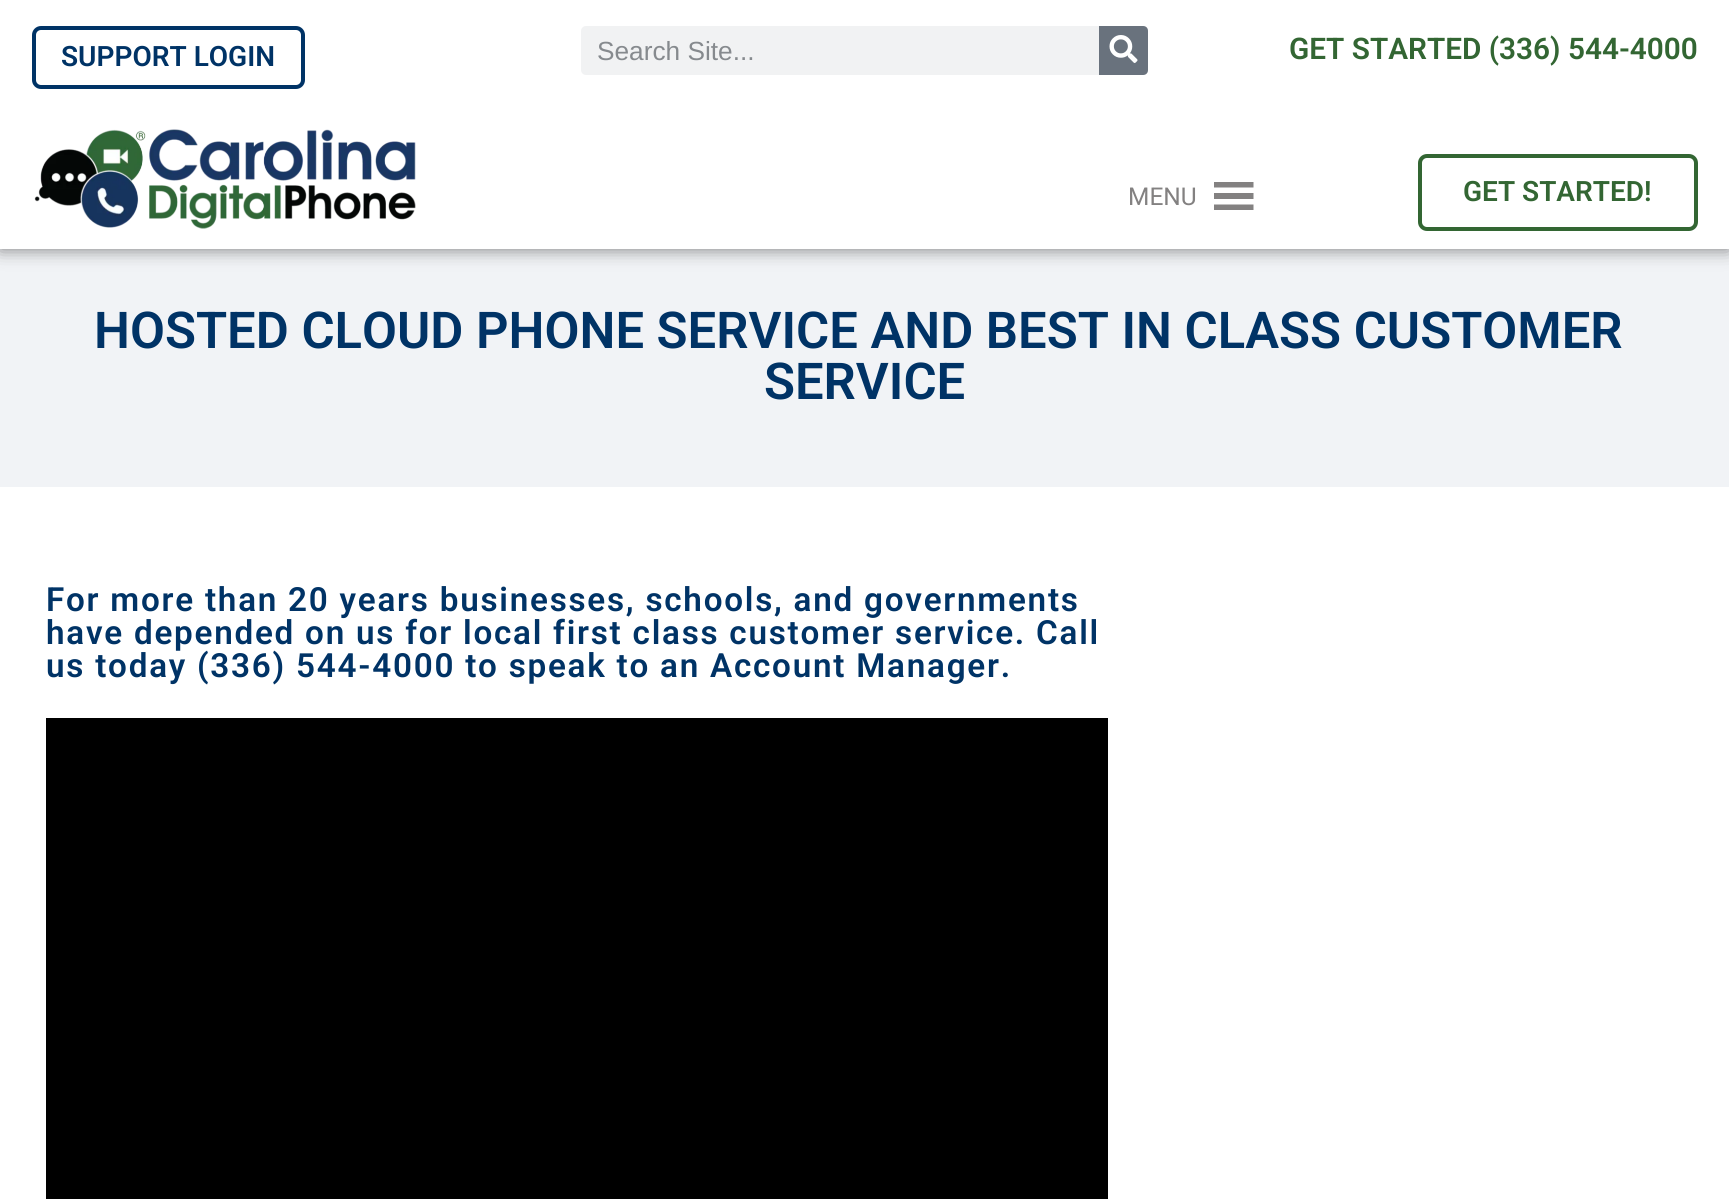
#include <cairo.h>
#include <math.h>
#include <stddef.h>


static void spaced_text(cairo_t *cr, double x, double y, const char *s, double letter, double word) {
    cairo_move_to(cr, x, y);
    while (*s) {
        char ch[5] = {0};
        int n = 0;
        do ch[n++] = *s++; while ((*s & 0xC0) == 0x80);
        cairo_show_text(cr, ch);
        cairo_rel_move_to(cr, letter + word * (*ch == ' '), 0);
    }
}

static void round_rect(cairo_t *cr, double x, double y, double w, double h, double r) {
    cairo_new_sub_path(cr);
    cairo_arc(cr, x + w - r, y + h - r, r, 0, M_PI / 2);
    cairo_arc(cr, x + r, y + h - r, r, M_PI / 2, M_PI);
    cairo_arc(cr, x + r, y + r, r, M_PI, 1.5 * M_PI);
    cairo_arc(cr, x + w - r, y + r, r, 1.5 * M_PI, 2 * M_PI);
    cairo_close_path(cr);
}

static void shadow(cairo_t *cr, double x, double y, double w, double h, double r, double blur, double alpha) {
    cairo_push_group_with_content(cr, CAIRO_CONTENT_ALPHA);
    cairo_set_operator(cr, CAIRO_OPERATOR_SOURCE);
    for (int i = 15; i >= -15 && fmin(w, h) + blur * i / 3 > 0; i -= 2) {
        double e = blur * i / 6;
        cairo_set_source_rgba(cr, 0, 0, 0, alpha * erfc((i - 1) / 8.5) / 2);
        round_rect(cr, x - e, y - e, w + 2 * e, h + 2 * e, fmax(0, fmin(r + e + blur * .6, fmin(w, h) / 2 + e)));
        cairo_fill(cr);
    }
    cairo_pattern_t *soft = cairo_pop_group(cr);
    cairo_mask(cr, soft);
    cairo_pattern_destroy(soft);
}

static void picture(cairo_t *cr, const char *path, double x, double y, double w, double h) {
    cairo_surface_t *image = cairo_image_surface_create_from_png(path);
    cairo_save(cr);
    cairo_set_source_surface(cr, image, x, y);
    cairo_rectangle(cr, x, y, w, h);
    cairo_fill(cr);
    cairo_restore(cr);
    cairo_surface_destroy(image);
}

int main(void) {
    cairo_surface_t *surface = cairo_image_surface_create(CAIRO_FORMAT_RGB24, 1729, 1199);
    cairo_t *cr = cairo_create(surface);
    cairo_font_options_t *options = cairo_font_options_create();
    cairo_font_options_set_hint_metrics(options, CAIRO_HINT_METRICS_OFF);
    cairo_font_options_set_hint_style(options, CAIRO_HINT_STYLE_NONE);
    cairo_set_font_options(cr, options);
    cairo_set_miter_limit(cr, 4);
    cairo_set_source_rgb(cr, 1, 1, 1);
    cairo_paint(cr);
    cairo_set_source_rgb(cr, 0.945, 0.953, 0.961);
    cairo_rectangle(cr, 0, 249, 1729, 238);
    cairo_fill(cr);
    cairo_set_source_rgb(cr, 0, 0, 0);
    shadow(cr, 0, 0, 1729, 249, 0, 9, 0.5);
    cairo_set_source_rgb(cr, 1, 1, 1);
    cairo_rectangle(cr, 0, 0, 1729, 249);
    cairo_fill(cr);
    round_rect(cr, 34, 28, 269, 59, 7);
    cairo_set_source_rgb(cr, 0, 0.2, 0.4);
    cairo_set_line_width(cr, 4);
    cairo_stroke(cr);
    cairo_select_font_face(cr, "Roboto SemiBold", CAIRO_FONT_SLANT_NORMAL, CAIRO_FONT_WEIGHT_NORMAL);
    cairo_set_font_size(cr, 28);
    cairo_move_to(cr, 61, 66);
    cairo_show_text(cr, "SUPPORT LOGIN");
    cairo_set_source_rgb(cr, 0.945, 0.949, 0.953);
    round_rect(cr, 581, 26, 567, 49, 5);
    cairo_fill(cr);
    cairo_select_font_face(cr, "Liberation Sans", CAIRO_FONT_SLANT_NORMAL, CAIRO_FONT_WEIGHT_NORMAL);
    cairo_set_font_size(cr, 26.25);
    cairo_set_source_rgb(cr, 0.525, 0.541, 0.557);
    cairo_move_to(cr, 597, 60);
    cairo_show_text(cr, "Search Site...");
    cairo_set_source_rgb(cr, 0.412, 0.447, 0.49);
    cairo_new_path(cr);
    cairo_move_to(cr, 1099, 26);
    cairo_line_to(cr, 1143, 26);
    cairo_curve_to(cr, 1146, 26, 1148, 28, 1148, 31);
    cairo_line_to(cr, 1148, 70);
    cairo_curve_to(cr, 1148, 73, 1146, 75, 1143, 75);
    cairo_line_to(cr, 1099, 75);
    cairo_close_path(cr);
    cairo_fill(cr);
    picture(cr, "img1.png", 1109, 35, 29, 28);
    cairo_select_font_face(cr, "Roboto SemiBold", CAIRO_FONT_SLANT_NORMAL, CAIRO_FONT_WEIGHT_NORMAL);
    cairo_set_font_size(cr, 29.75);
    cairo_set_source_rgb(cr, 0.2, 0.4, 0.2);
    cairo_move_to(cr, 1289, 59);
    cairo_show_text(cr, "GET STARTED (336) 544-4000");
    picture(cr, "img2.png", 34, 129, 382, 100);
    cairo_select_font_face(cr, "Roboto", CAIRO_FONT_SLANT_NORMAL, CAIRO_FONT_WEIGHT_NORMAL);
    cairo_set_font_size(cr, 24.5);
    cairo_set_source_rgb(cr, 0.514, 0.506, 0.506);
    cairo_move_to(cr, 1128, 205);
    cairo_show_text(cr, "MENU");
    cairo_new_path(cr);
    cairo_move_to(cr, 1214, 210);
    cairo_line_to(cr, 1253.5, 210);
    cairo_line_to(cr, 1253.5, 204.5);
    cairo_line_to(cr, 1214, 204.5);
    cairo_close_path(cr);
    cairo_move_to(cr, 1214, 182);
    cairo_line_to(cr, 1214, 187.5);
    cairo_line_to(cr, 1253.5, 187.5);
    cairo_line_to(cr, 1253.5, 182);
    cairo_close_path(cr);
    cairo_move_to(cr, 1214, 199);
    cairo_line_to(cr, 1253.5, 199);
    cairo_line_to(cr, 1253.5, 193);
    cairo_line_to(cr, 1214, 193);
    cairo_close_path(cr);
    cairo_fill(cr);
    round_rect(cr, 1420, 156, 276, 73, 7);
    cairo_set_source_rgb(cr, 0.2, 0.4, 0.2);
    cairo_stroke(cr);
    cairo_select_font_face(cr, "Roboto SemiBold", CAIRO_FONT_SLANT_NORMAL, CAIRO_FONT_WEIGHT_NORMAL);
    cairo_set_font_size(cr, 28);
    cairo_move_to(cr, 1463, 201);
    cairo_show_text(cr, "GET STARTED!");
    cairo_set_font_size(cr, 50.75);
    cairo_set_source_rgb(cr, 0, 0.2, 0.4);
    cairo_move_to(cr, 94, 348);
    cairo_show_text(cr, "HOSTED CLOUD PHONE SERVICE AND BEST IN CLASS CUSTOMER");
    cairo_move_to(cr, 764, 399);
    cairo_show_text(cr, "SERVICE");
    cairo_set_font_size(cr, 33.25);
    spaced_text(cr, 46, 611, "For more than 20 years businesses, schools, and governments", 1.75, 0);
    spaced_text(cr, 46, 644, "have depended on us for local first class customer service. Call", 1.75, 0);
    spaced_text(cr, 46, 677, "us today (336) 544-4000 to speak to an Account Manager.", 1.75, 0);
    cairo_set_source_rgb(cr, 0, 0, 0);
    cairo_rectangle(cr, 46, 718, 1062, 481);
    cairo_fill(cr);
    cairo_surface_write_to_png(surface, "page.png");
    cairo_font_options_destroy(options);
    cairo_destroy(cr);
    cairo_surface_destroy(surface);
    return 0;
}
